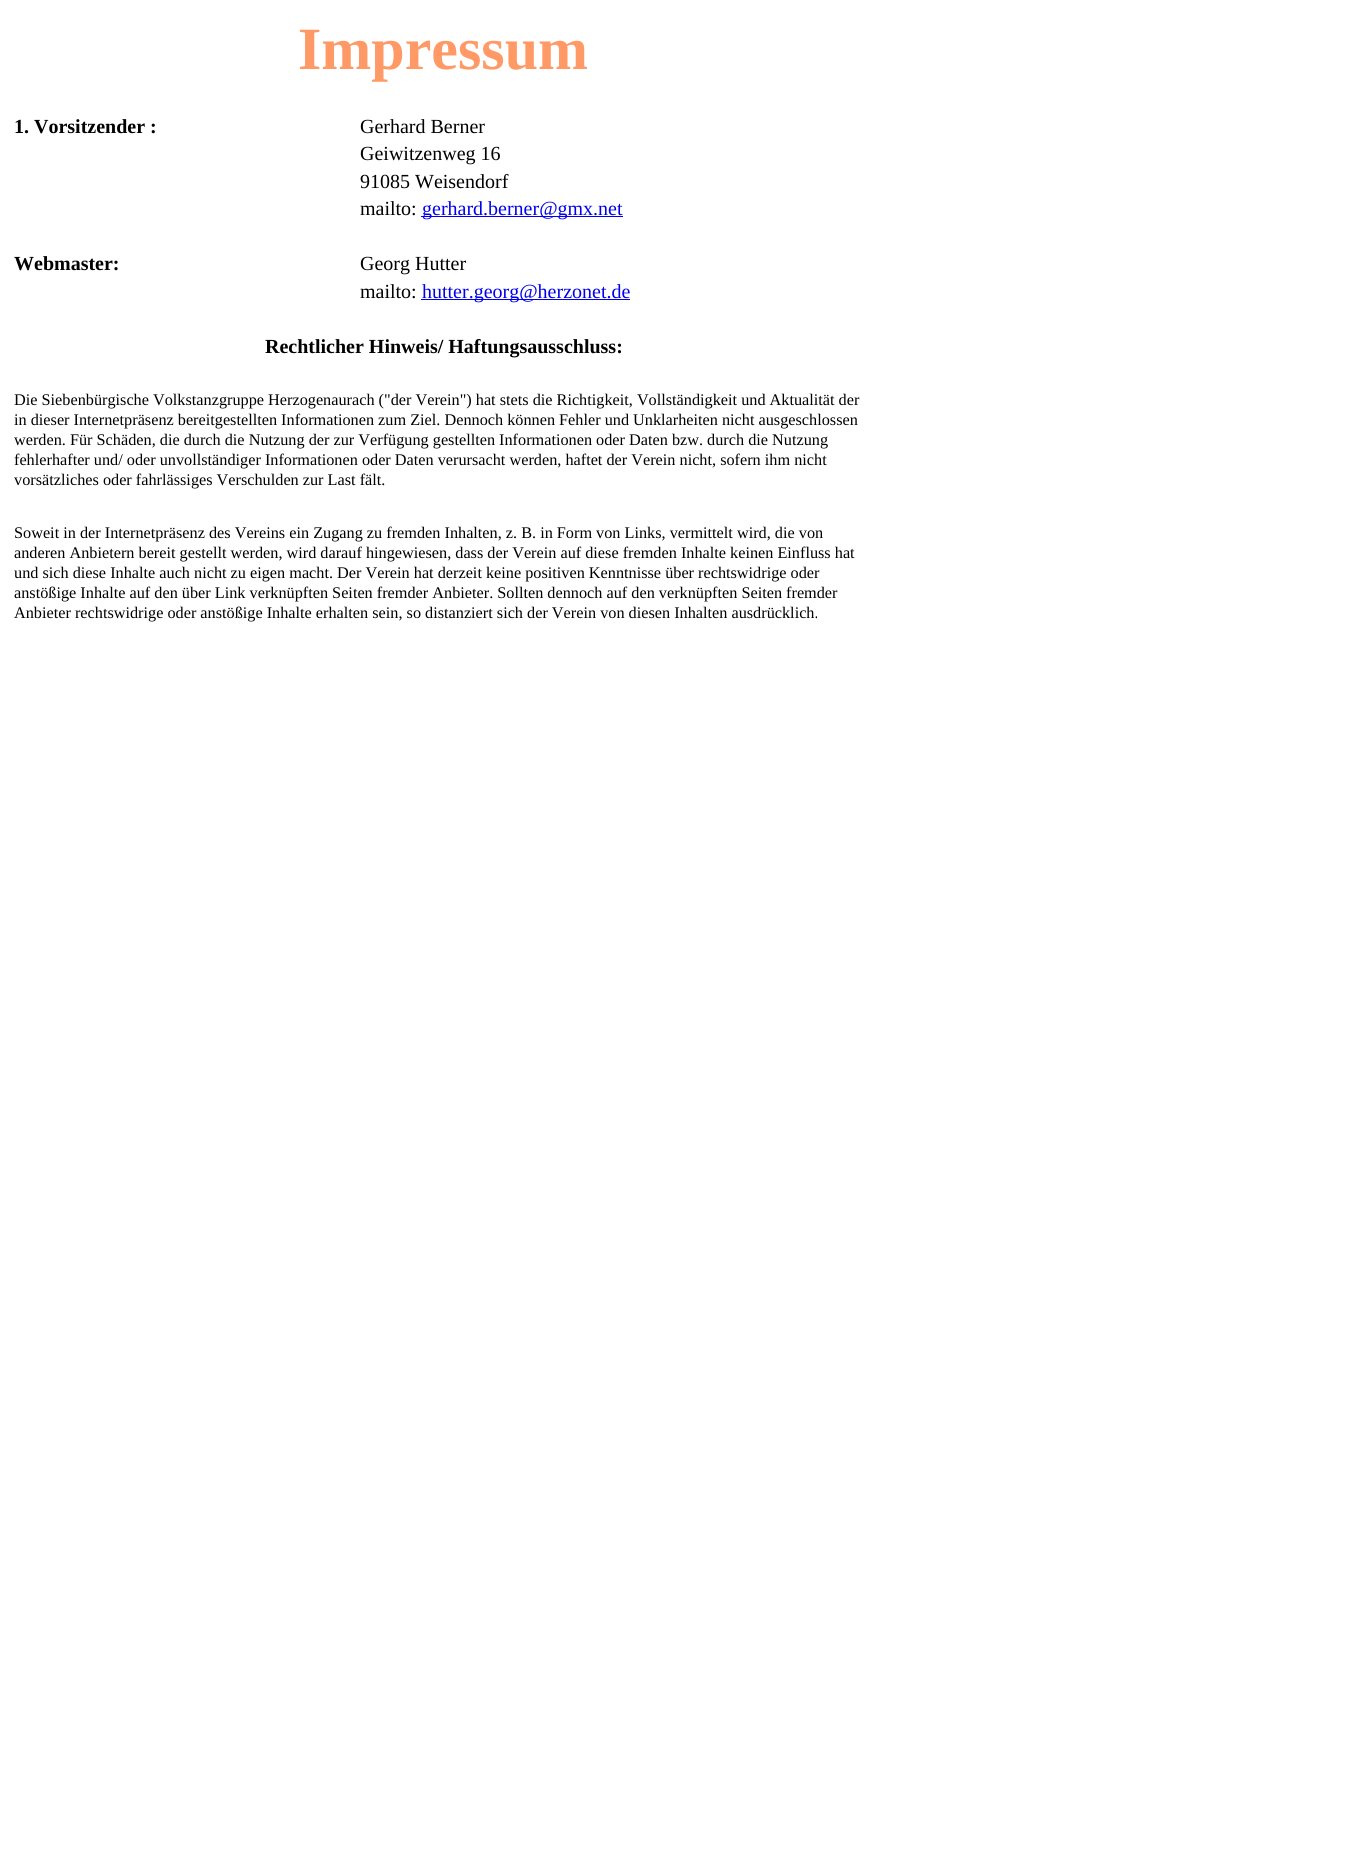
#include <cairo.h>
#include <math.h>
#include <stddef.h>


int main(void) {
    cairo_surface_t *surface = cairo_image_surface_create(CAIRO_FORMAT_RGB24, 1353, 1852);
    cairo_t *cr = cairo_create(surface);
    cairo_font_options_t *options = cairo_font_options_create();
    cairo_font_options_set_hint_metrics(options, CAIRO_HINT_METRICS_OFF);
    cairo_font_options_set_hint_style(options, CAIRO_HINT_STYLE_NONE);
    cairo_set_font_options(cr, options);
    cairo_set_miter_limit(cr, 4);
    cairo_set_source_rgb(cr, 1, 1, 1);
    cairo_paint(cr);
    cairo_select_font_face(cr, "Liberation Serif", CAIRO_FONT_SLANT_NORMAL, CAIRO_FONT_WEIGHT_BOLD);
    cairo_set_font_size(cr, 60);
    cairo_set_source_rgb(cr, 1, 0.6, 0.4);
    cairo_move_to(cr, 298, 69);
    cairo_show_text(cr, "Impressum");
    cairo_set_font_size(cr, 20);
    cairo_set_source_rgb(cr, 0, 0, 0);
    cairo_move_to(cr, 14, 133);
    cairo_show_text(cr, "1. Vorsitzender :");
    cairo_select_font_face(cr, "Liberation Serif", CAIRO_FONT_SLANT_NORMAL, CAIRO_FONT_WEIGHT_NORMAL);
    cairo_move_to(cr, 360, 133);
    cairo_show_text(cr, "Gerhard Berner");
    cairo_move_to(cr, 360, 160);
    cairo_show_text(cr, "Geiwitzenweg 16");
    cairo_move_to(cr, 360, 188);
    cairo_show_text(cr, "91085 Weisendorf");
    cairo_move_to(cr, 360, 215);
    cairo_show_text(cr, "mailto:");
    cairo_set_source_rgb(cr, 0, 0, 0.933);
    cairo_rectangle(cr, 421, 216, 202, 1);
    cairo_fill(cr);
    cairo_move_to(cr, 422, 215);
    cairo_show_text(cr, "gerhard.berner@gmx.net");
    cairo_select_font_face(cr, "Liberation Serif", CAIRO_FONT_SLANT_NORMAL, CAIRO_FONT_WEIGHT_BOLD);
    cairo_set_source_rgb(cr, 0, 0, 0);
    cairo_move_to(cr, 14, 270);
    cairo_show_text(cr, "Webmaster:");
    cairo_select_font_face(cr, "Liberation Serif", CAIRO_FONT_SLANT_NORMAL, CAIRO_FONT_WEIGHT_NORMAL);
    cairo_move_to(cr, 360, 270);
    cairo_show_text(cr, "Georg Hutter");
    cairo_move_to(cr, 360, 298);
    cairo_show_text(cr, "mailto:");
    cairo_set_source_rgb(cr, 0, 0, 0.933);
    cairo_rectangle(cr, 421, 299, 209, 1);
    cairo_fill(cr);
    cairo_move_to(cr, 422, 298);
    cairo_show_text(cr, "hutter.georg@herzonet.de");
    cairo_select_font_face(cr, "Liberation Serif", CAIRO_FONT_SLANT_NORMAL, CAIRO_FONT_WEIGHT_BOLD);
    cairo_set_source_rgb(cr, 0, 0, 0);
    cairo_move_to(cr, 265, 353);
    cairo_show_text(cr, "Rechtlicher Hinweis/ Haftungsausschluss:");
    cairo_select_font_face(cr, "Liberation Serif", CAIRO_FONT_SLANT_NORMAL, CAIRO_FONT_WEIGHT_NORMAL);
    cairo_set_font_size(cr, 16.25);
    cairo_move_to(cr, 14, 405);
    cairo_show_text(cr, "Die Siebenbürgische Volkstanzgruppe Herzogenaurach (\"der Verein\") hat stets die Richtigkeit, Vollständigkeit und Aktualität der");
    cairo_move_to(cr, 14, 425);
    cairo_show_text(cr, "in dieser Internetpräsenz bereitgestellten Informationen zum Ziel. Dennoch können Fehler und Unklarheiten nicht ausgeschlossen");
    cairo_move_to(cr, 14, 445);
    cairo_show_text(cr, "werden. Für Schäden, die durch die Nutzung der zur Verfügung gestellten Informationen oder Daten bzw. durch die Nutzung");
    cairo_move_to(cr, 14, 465);
    cairo_show_text(cr, "fehlerhafter und/ oder unvollständiger Informationen oder Daten verursacht werden, haftet der Verein nicht, sofern ihm nicht");
    cairo_move_to(cr, 14, 485);
    cairo_show_text(cr, "vorsätzliches oder fahrlässiges Verschulden zur Last fält.");
    cairo_move_to(cr, 14, 538);
    cairo_show_text(cr, "Soweit in der Internetpräsenz des Vereins ein Zugang zu fremden Inhalten, z. B. in Form von Links, vermittelt wird, die von");
    cairo_move_to(cr, 14, 558);
    cairo_show_text(cr, "anderen Anbietern bereit gestellt werden, wird darauf hingewiesen, dass der Verein auf diese fremden Inhalte keinen Einfluss hat");
    cairo_move_to(cr, 14, 578);
    cairo_show_text(cr, "und sich diese Inhalte auch nicht zu eigen macht. Der Verein hat derzeit keine positiven Kenntnisse über rechtswidrige oder");
    cairo_move_to(cr, 14, 598);
    cairo_show_text(cr, "anstößige Inhalte auf den über Link verknüpften Seiten fremder Anbieter. Sollten dennoch auf den verknüpften Seiten fremder");
    cairo_move_to(cr, 14, 618);
    cairo_show_text(cr, "Anbieter rechtswidrige oder anstößige Inhalte erhalten sein, so distanziert sich der Verein von diesen Inhalten ausdrücklich.");
    cairo_surface_write_to_png(surface, "page.png");
    cairo_font_options_destroy(options);
    cairo_destroy(cr);
    cairo_surface_destroy(surface);
    return 0;
}
